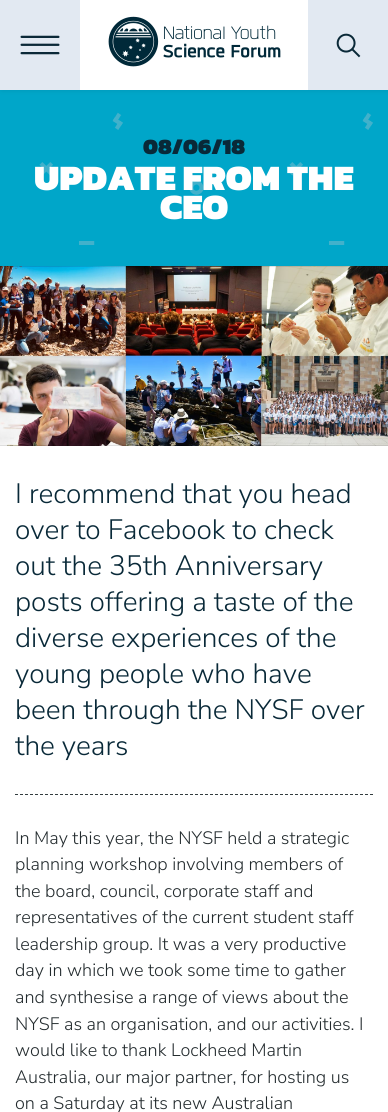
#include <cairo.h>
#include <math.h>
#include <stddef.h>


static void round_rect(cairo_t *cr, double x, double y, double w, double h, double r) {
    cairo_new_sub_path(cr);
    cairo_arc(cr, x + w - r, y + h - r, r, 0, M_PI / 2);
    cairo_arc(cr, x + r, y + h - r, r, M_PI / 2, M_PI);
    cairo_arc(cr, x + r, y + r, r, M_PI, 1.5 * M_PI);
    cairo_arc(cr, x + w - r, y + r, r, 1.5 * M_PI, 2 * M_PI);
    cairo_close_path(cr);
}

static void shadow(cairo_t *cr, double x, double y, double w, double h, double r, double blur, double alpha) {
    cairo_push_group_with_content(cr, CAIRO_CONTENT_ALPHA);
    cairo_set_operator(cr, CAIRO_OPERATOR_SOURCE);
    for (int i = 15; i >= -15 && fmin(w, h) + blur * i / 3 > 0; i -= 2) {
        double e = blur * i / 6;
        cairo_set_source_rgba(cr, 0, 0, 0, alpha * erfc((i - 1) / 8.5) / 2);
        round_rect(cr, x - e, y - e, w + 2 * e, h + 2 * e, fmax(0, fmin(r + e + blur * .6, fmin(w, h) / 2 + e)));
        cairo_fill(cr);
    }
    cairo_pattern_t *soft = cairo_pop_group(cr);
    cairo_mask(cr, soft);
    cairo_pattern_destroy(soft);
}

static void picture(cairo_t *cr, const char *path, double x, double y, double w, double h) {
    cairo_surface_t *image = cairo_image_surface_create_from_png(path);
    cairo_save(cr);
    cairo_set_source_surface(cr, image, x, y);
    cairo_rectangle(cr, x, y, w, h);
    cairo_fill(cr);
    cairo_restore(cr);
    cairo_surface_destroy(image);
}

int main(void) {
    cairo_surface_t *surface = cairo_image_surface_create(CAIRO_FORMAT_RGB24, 388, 1112);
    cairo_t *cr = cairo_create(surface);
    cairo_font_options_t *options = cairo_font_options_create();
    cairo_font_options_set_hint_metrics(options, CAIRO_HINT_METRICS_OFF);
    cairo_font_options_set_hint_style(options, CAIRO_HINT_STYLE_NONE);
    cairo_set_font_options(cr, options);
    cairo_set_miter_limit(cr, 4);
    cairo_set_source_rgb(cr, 1, 1, 1);
    cairo_paint(cr);
    cairo_set_source_rgb(cr, 0, 0.651, 0.788);
    cairo_rectangle(cr, 0, 90, 388, 176);
    cairo_fill(cr);
    cairo_set_source_rgb(cr, 0, 0, 0);
    shadow(cr, 1, 1, 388, 90, 0, 2.5, 0.07);
    cairo_set_source_rgb(cr, 1, 1, 1);
    cairo_rectangle(cr, 80, 0, 228, 90);
    cairo_fill(cr);
    cairo_set_source_rgb(cr, 0.886, 0.914, 0.949);
    cairo_rectangle(cr, 0, 0, 80, 90);
    cairo_fill(cr);
    picture(cr, "img1.png", 20, 35, 40, 20);
    picture(cr, "img2.png", 108, 16, 173, 51);
    cairo_rectangle(cr, 308, 0, 80, 90);
    cairo_fill(cr);
    picture(cr, "img3.png", 336, 33, 25, 25);
    picture(cr, "img4.png", 39, 112, 334, 133);
    cairo_select_font_face(cr, "Kanit Black", CAIRO_FONT_SLANT_NORMAL, CAIRO_FONT_WEIGHT_NORMAL);
    cairo_set_font_size(cr, 22);
    cairo_set_source_rgb(cr, 0.039, 0.161, 0.22);
    cairo_move_to(cr, 143, 154);
    cairo_show_text(cr, "08/06/18");
    cairo_set_font_size(cr, 36);
    cairo_set_source_rgb(cr, 1, 1, 1);
    cairo_move_to(cr, 34, 190);
    cairo_show_text(cr, "UPDATE FROM THE");
    cairo_move_to(cr, 160, 219);
    cairo_show_text(cr, "CEO");
    picture(cr, "img5.png", 0, 266, 388, 180);
    cairo_new_path(cr);
    cairo_move_to(cr, 15, 794.5);
    cairo_line_to(cr, 373, 794.5);
    cairo_set_source_rgb(cr, 0.2, 0.239, 0.247);
    cairo_set_line_width(cr, 1);
    cairo_set_dash(cr, (double[]){3, 2}, 2, 0);
    cairo_stroke(cr);
    cairo_select_font_face(cr, "Nunito Sans Light", CAIRO_FONT_SLANT_NORMAL, CAIRO_FONT_WEIGHT_NORMAL);
    cairo_set_font_size(cr, 28);
    cairo_set_source_rgb(cr, 0.039, 0.161, 0.22);
    cairo_move_to(cr, 15, 503);
    cairo_show_text(cr, "I recommend that you head");
    cairo_move_to(cr, 15, 539);
    cairo_show_text(cr, "over to Facebook to check");
    cairo_move_to(cr, 15, 575);
    cairo_show_text(cr, "out the 35th Anniversary");
    cairo_move_to(cr, 15, 611);
    cairo_show_text(cr, "posts offering a taste of the");
    cairo_move_to(cr, 15, 647);
    cairo_show_text(cr, "diverse experiences of the");
    cairo_move_to(cr, 15, 683);
    cairo_show_text(cr, "young people who have");
    cairo_move_to(cr, 15, 719);
    cairo_show_text(cr, "been through the NYSF over");
    cairo_move_to(cr, 15, 755);
    cairo_show_text(cr, "the years");
    cairo_set_font_size(cr, 18);
    cairo_set_source_rgb(cr, 0.133, 0.165, 0.176);
    cairo_move_to(cr, 15, 844);
    cairo_show_text(cr, "In May this year, the NYSF held a strategic");
    cairo_move_to(cr, 15, 870);
    cairo_show_text(cr, "planning workshop involving members of");
    cairo_move_to(cr, 15, 897);
    cairo_show_text(cr, "the board, council, corporate staff and");
    cairo_move_to(cr, 15, 923);
    cairo_show_text(cr, "representatives of the current student staff");
    cairo_move_to(cr, 15, 950);
    cairo_show_text(cr, "leadership group. It was a very productive");
    cairo_move_to(cr, 15, 976);
    cairo_show_text(cr, "day in which we took some time to gather");
    cairo_move_to(cr, 15, 1003);
    cairo_show_text(cr, "and synthesise a range of views about the");
    cairo_move_to(cr, 15, 1030);
    cairo_show_text(cr, "NYSF as an organisation, and our activities. I");
    cairo_move_to(cr, 15, 1056);
    cairo_show_text(cr, "would like to thank Lockheed Martin");
    cairo_move_to(cr, 15, 1083);
    cairo_show_text(cr, "Australia, our major partner, for hosting us");
    cairo_move_to(cr, 15, 1109);
    cairo_show_text(cr, "on a Saturday at its new Australian");
    cairo_surface_write_to_png(surface, "page.png");
    cairo_font_options_destroy(options);
    cairo_destroy(cr);
    cairo_surface_destroy(surface);
    return 0;
}
